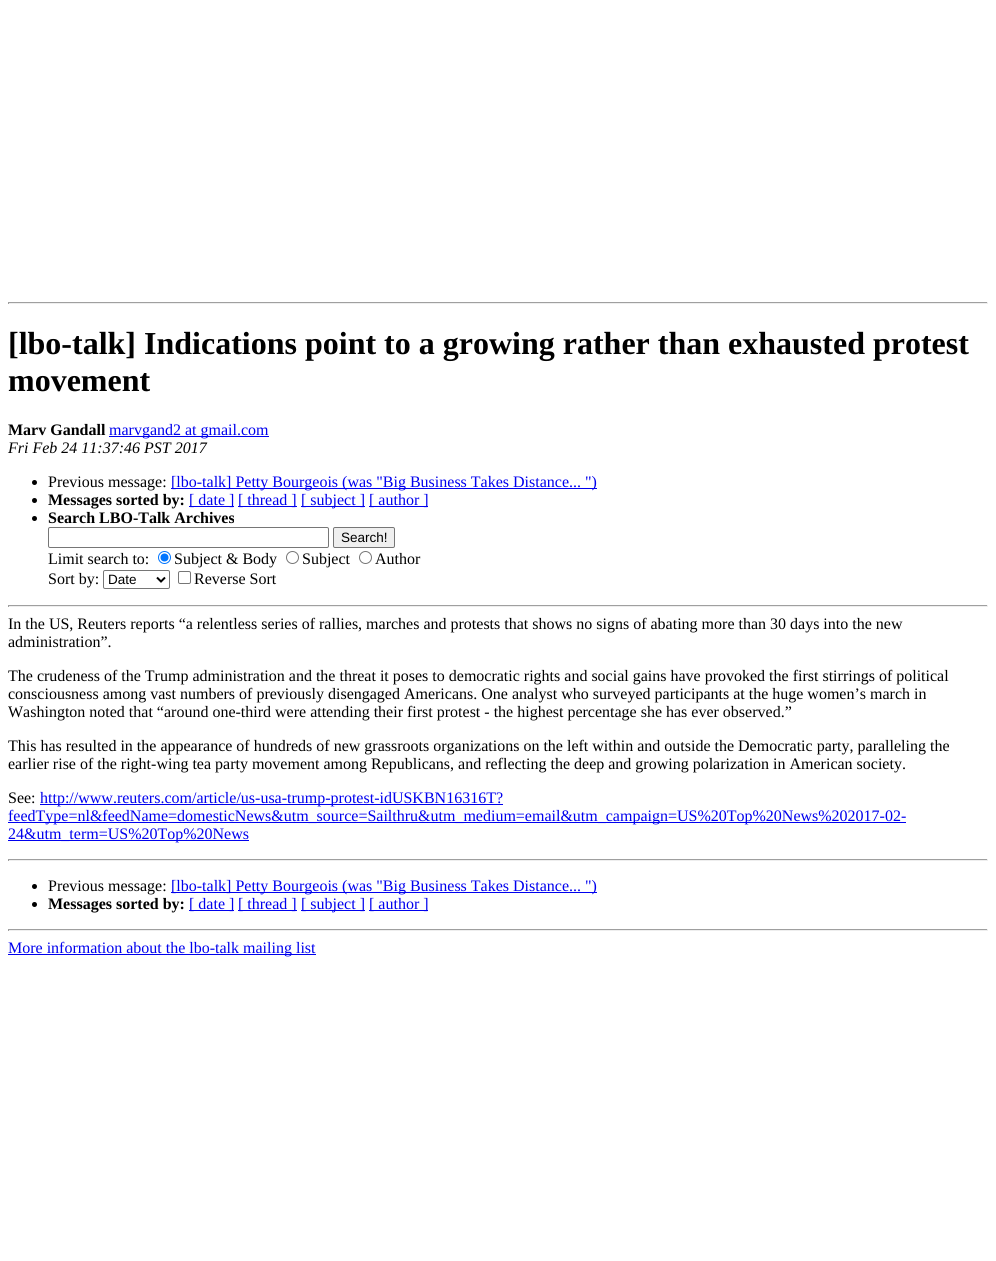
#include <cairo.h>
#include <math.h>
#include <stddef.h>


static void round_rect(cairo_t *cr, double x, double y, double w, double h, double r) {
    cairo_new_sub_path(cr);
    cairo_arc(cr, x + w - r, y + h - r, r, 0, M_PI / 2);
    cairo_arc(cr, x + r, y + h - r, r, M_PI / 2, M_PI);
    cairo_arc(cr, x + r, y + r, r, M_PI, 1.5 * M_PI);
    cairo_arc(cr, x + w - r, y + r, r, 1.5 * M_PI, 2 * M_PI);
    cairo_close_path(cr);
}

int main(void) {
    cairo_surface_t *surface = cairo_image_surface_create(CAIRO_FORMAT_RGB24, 996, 1261);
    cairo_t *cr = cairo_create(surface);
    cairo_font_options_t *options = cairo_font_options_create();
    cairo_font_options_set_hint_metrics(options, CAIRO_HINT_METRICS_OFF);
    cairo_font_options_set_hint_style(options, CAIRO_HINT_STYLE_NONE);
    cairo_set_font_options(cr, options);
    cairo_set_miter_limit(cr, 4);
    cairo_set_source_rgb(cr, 1, 1, 1);
    cairo_paint(cr);
    cairo_set_source_rgb(cr, 0.624, 0.624, 0.624);
    cairo_rectangle(cr, 8, 302, 980, 1);
    cairo_fill(cr);
    cairo_set_source_rgb(cr, 0.933, 0.933, 0.933);
    cairo_rectangle(cr, 987, 302, 1, 2);
    cairo_fill(cr);
    cairo_rectangle(cr, 8, 303, 980, 1);
    cairo_fill(cr);
    cairo_set_source_rgb(cr, 0.624, 0.624, 0.624);
    cairo_rectangle(cr, 8, 302, 1, 2);
    cairo_fill(cr);
    cairo_select_font_face(cr, "Liberation Serif", CAIRO_FONT_SLANT_NORMAL, CAIRO_FONT_WEIGHT_BOLD);
    cairo_set_font_size(cr, 32);
    cairo_set_source_rgb(cr, 0, 0, 0);
    cairo_move_to(cr, 8, 354);
    cairo_show_text(cr, "[lbo-talk] Indications point to a growing rather than exhausted protest");
    cairo_move_to(cr, 8, 391);
    cairo_show_text(cr, "movement");
    cairo_set_font_size(cr, 16);
    cairo_move_to(cr, 8, 435);
    cairo_show_text(cr, "Marv Gandall");
    cairo_set_source_rgb(cr, 0, 0, 0.933);
    cairo_rectangle(cr, 109, 436, 160, 1);
    cairo_fill(cr);
    cairo_select_font_face(cr, "Liberation Serif", CAIRO_FONT_SLANT_NORMAL, CAIRO_FONT_WEIGHT_NORMAL);
    cairo_move_to(cr, 109, 435);
    cairo_show_text(cr, "marvgand2 at gmail.com");
    cairo_select_font_face(cr, "Liberation Serif", CAIRO_FONT_SLANT_ITALIC, CAIRO_FONT_WEIGHT_NORMAL);
    cairo_set_source_rgb(cr, 0, 0, 0);
    cairo_move_to(cr, 8, 453);
    cairo_show_text(cr, "Fri Feb 24 11:37:46 PST 2017");
    cairo_new_path(cr);
    cairo_arc(cr, 34.5, 482.5, 2.5, 0, 2 * M_PI);
    cairo_fill(cr);
    cairo_select_font_face(cr, "Liberation Serif", CAIRO_FONT_SLANT_NORMAL, CAIRO_FONT_WEIGHT_NORMAL);
    cairo_move_to(cr, 48, 487);
    cairo_show_text(cr, "Previous message:");
    cairo_set_source_rgb(cr, 0, 0, 0.933);
    cairo_rectangle(cr, 171, 488, 426, 1);
    cairo_fill(cr);
    cairo_move_to(cr, 171, 487);
    cairo_show_text(cr, "[lbo-talk] Petty Bourgeois (was \"Big Business Takes Distance... \")");
    cairo_set_source_rgb(cr, 0, 0, 0);
    cairo_new_path(cr);
    cairo_arc(cr, 34.5, 500.5, 2.5, 0, 2 * M_PI);
    cairo_fill(cr);
    cairo_select_font_face(cr, "Liberation Serif", CAIRO_FONT_SLANT_NORMAL, CAIRO_FONT_WEIGHT_BOLD);
    cairo_move_to(cr, 48, 505);
    cairo_show_text(cr, "Messages sorted by:");
    cairo_set_source_rgb(cr, 0, 0, 0.933);
    cairo_rectangle(cr, 189, 506, 45, 1);
    cairo_fill(cr);
    cairo_select_font_face(cr, "Liberation Serif", CAIRO_FONT_SLANT_NORMAL, CAIRO_FONT_WEIGHT_NORMAL);
    cairo_move_to(cr, 189, 505);
    cairo_show_text(cr, "[ date ]");
    cairo_rectangle(cr, 238, 506, 59, 1);
    cairo_fill(cr);
    cairo_move_to(cr, 238, 505);
    cairo_show_text(cr, "[ thread ]");
    cairo_rectangle(cr, 301, 506, 64, 1);
    cairo_fill(cr);
    cairo_move_to(cr, 301, 505);
    cairo_show_text(cr, "[ subject ]");
    cairo_rectangle(cr, 369, 506, 59, 1);
    cairo_fill(cr);
    cairo_move_to(cr, 369, 505);
    cairo_show_text(cr, "[ author ]");
    cairo_set_source_rgb(cr, 0, 0, 0);
    cairo_new_path(cr);
    cairo_arc(cr, 34.5, 518.5, 2.5, 0, 2 * M_PI);
    cairo_fill(cr);
    cairo_select_font_face(cr, "Liberation Serif", CAIRO_FONT_SLANT_NORMAL, CAIRO_FONT_WEIGHT_BOLD);
    cairo_move_to(cr, 48, 523);
    cairo_show_text(cr, "Search LBO-Talk Archives");
    round_rect(cr, 48.5, 527.5, 280, 20, 1.5);
    cairo_set_source_rgb(cr, 0.463, 0.463, 0.463);
    cairo_set_line_width(cr, 1);
    cairo_stroke(cr);
    cairo_set_source_rgb(cr, 0.937, 0.937, 0.937);
    round_rect(cr, 333.5, 527.5, 61, 20, 1.5);
    cairo_fill_preserve(cr);
    cairo_set_source_rgb(cr, 0.463, 0.463, 0.463);
    cairo_stroke(cr);
    cairo_select_font_face(cr, "Liberation Sans", CAIRO_FONT_SLANT_NORMAL, CAIRO_FONT_WEIGHT_NORMAL);
    cairo_set_font_size(cr, 13.5);
    cairo_set_source_rgb(cr, 0, 0, 0);
    cairo_move_to(cr, 341, 542);
    cairo_show_text(cr, "Search!");
    cairo_select_font_face(cr, "Liberation Serif", CAIRO_FONT_SLANT_NORMAL, CAIRO_FONT_WEIGHT_NORMAL);
    cairo_set_font_size(cr, 16);
    cairo_move_to(cr, 48, 564);
    cairo_show_text(cr, "Limit search to:");
    cairo_new_path(cr);
    cairo_arc(cr, 164.5, 557.5, 6, 0, 2 * M_PI);
    cairo_set_source_rgb(cr, 0, 0.459, 1);
    cairo_stroke(cr);
    cairo_arc(cr, 164.5, 557.5, 4, 0, 2 * M_PI);
    cairo_fill(cr);
    cairo_set_source_rgb(cr, 0, 0, 0);
    cairo_move_to(cr, 174, 564);
    cairo_show_text(cr, "Subject & Body");
    cairo_new_path(cr);
    cairo_arc(cr, 292.5, 557.5, 6, 0, 2 * M_PI);
    cairo_set_source_rgb(cr, 0.463, 0.463, 0.463);
    cairo_stroke(cr);
    cairo_set_source_rgb(cr, 0, 0, 0);
    cairo_move_to(cr, 302, 564);
    cairo_show_text(cr, "Subject");
    cairo_new_path(cr);
    cairo_arc(cr, 365.5, 557.5, 6, 0, 2 * M_PI);
    cairo_set_source_rgb(cr, 0.463, 0.463, 0.463);
    cairo_stroke(cr);
    cairo_set_source_rgb(cr, 0, 0, 0);
    cairo_move_to(cr, 375, 564);
    cairo_show_text(cr, "Author");
    cairo_move_to(cr, 48, 584);
    cairo_show_text(cr, "Sort by:");
    round_rect(cr, 103.5, 570.5, 66, 18, 1.5);
    cairo_set_source_rgb(cr, 0.463, 0.463, 0.463);
    cairo_stroke(cr);
    cairo_new_path(cr);
    cairo_move_to(cr, 157, 577.5);
    cairo_line_to(cr, 161, 581.5);
    cairo_line_to(cr, 165, 577.5);
    cairo_set_source_rgb(cr, 0, 0, 0);
    cairo_set_line_width(cr, 2);
    cairo_stroke(cr);
    cairo_select_font_face(cr, "Liberation Sans", CAIRO_FONT_SLANT_NORMAL, CAIRO_FONT_WEIGHT_NORMAL);
    cairo_set_font_size(cr, 13.5);
    cairo_move_to(cr, 108, 584);
    cairo_show_text(cr, "Date");
    round_rect(cr, 178.5, 571.5, 12, 12, 1.5);
    cairo_set_source_rgb(cr, 0.463, 0.463, 0.463);
    cairo_set_line_width(cr, 1);
    cairo_stroke(cr);
    cairo_select_font_face(cr, "Liberation Serif", CAIRO_FONT_SLANT_NORMAL, CAIRO_FONT_WEIGHT_NORMAL);
    cairo_set_font_size(cr, 16);
    cairo_set_source_rgb(cr, 0, 0, 0);
    cairo_move_to(cr, 194, 584);
    cairo_show_text(cr, "Reverse Sort");
    cairo_set_source_rgb(cr, 0.624, 0.624, 0.624);
    cairo_rectangle(cr, 8, 605, 980, 1);
    cairo_fill(cr);
    cairo_set_source_rgb(cr, 0.933, 0.933, 0.933);
    cairo_rectangle(cr, 987, 605, 1, 2);
    cairo_fill(cr);
    cairo_rectangle(cr, 8, 606, 980, 1);
    cairo_fill(cr);
    cairo_set_source_rgb(cr, 0.624, 0.624, 0.624);
    cairo_rectangle(cr, 8, 605, 1, 2);
    cairo_fill(cr);
    cairo_set_source_rgb(cr, 0, 0, 0);
    cairo_move_to(cr, 8, 629);
    cairo_show_text(cr, "In the US, Reuters reports “a relentless series of rallies, marches and protests that shows no signs of abating more than 30 days into the new");
    cairo_move_to(cr, 8, 647);
    cairo_show_text(cr, "administration”.");
    cairo_move_to(cr, 8, 681);
    cairo_show_text(cr, "The crudeness of the Trump administration and the threat it poses to democratic rights and social gains have provoked the first stirrings of political");
    cairo_move_to(cr, 8, 699);
    cairo_show_text(cr, "consciousness among vast numbers of previously disengaged Americans. One analyst who surveyed participants at the huge women’s march in");
    cairo_move_to(cr, 8, 717);
    cairo_show_text(cr, "Washington noted that “around one-third were attending their first protest - the highest percentage she has ever observed.”");
    cairo_move_to(cr, 8, 751);
    cairo_show_text(cr, "This has resulted in the appearance of hundreds of new grassroots organizations on the left within and outside the Democratic party, paralleling the");
    cairo_move_to(cr, 8, 769);
    cairo_show_text(cr, "earlier rise of the right-wing tea party movement among Republicans, and reflecting the deep and growing polarization in American society.");
    cairo_move_to(cr, 8, 803);
    cairo_show_text(cr, "See:");
    cairo_set_source_rgb(cr, 0, 0, 0.933);
    cairo_rectangle(cr, 40, 804, 463, 1);
    cairo_fill(cr);
    cairo_move_to(cr, 40, 803);
    cairo_show_text(cr, "http://www.reuters.com/article/us-usa-trump-protest-idUSKBN16316T?");
    cairo_rectangle(cr, 8, 822, 898, 1);
    cairo_fill(cr);
    cairo_move_to(cr, 8, 821);
    cairo_show_text(cr, "feedType=nl&feedName=domesticNews&utm_source=Sailthru&utm_medium=email&utm_campaign=US%20Top%20News%202017-02-");
    cairo_rectangle(cr, 8, 840, 241, 1);
    cairo_fill(cr);
    cairo_move_to(cr, 8, 839);
    cairo_show_text(cr, "24&utm_term=US%20Top%20News");
    cairo_set_source_rgb(cr, 0.624, 0.624, 0.624);
    cairo_rectangle(cr, 8, 859, 980, 1);
    cairo_fill(cr);
    cairo_set_source_rgb(cr, 0.933, 0.933, 0.933);
    cairo_rectangle(cr, 987, 859, 1, 2);
    cairo_fill(cr);
    cairo_rectangle(cr, 8, 860, 980, 1);
    cairo_fill(cr);
    cairo_set_source_rgb(cr, 0.624, 0.624, 0.624);
    cairo_rectangle(cr, 8, 859, 1, 2);
    cairo_fill(cr);
    cairo_set_source_rgb(cr, 0, 0, 0);
    cairo_arc(cr, 34.5, 886.5, 2.5, 0, 2 * M_PI);
    cairo_fill(cr);
    cairo_move_to(cr, 48, 891);
    cairo_show_text(cr, "Previous message:");
    cairo_set_source_rgb(cr, 0, 0, 0.933);
    cairo_rectangle(cr, 171, 892, 426, 1);
    cairo_fill(cr);
    cairo_move_to(cr, 171, 891);
    cairo_show_text(cr, "[lbo-talk] Petty Bourgeois (was \"Big Business Takes Distance... \")");
    cairo_set_source_rgb(cr, 0, 0, 0);
    cairo_new_path(cr);
    cairo_arc(cr, 34.5, 904.5, 2.5, 0, 2 * M_PI);
    cairo_fill(cr);
    cairo_select_font_face(cr, "Liberation Serif", CAIRO_FONT_SLANT_NORMAL, CAIRO_FONT_WEIGHT_BOLD);
    cairo_move_to(cr, 48, 909);
    cairo_show_text(cr, "Messages sorted by:");
    cairo_set_source_rgb(cr, 0, 0, 0.933);
    cairo_rectangle(cr, 189, 910, 45, 1);
    cairo_fill(cr);
    cairo_select_font_face(cr, "Liberation Serif", CAIRO_FONT_SLANT_NORMAL, CAIRO_FONT_WEIGHT_NORMAL);
    cairo_move_to(cr, 189, 909);
    cairo_show_text(cr, "[ date ]");
    cairo_rectangle(cr, 238, 910, 59, 1);
    cairo_fill(cr);
    cairo_move_to(cr, 238, 909);
    cairo_show_text(cr, "[ thread ]");
    cairo_rectangle(cr, 301, 910, 64, 1);
    cairo_fill(cr);
    cairo_move_to(cr, 301, 909);
    cairo_show_text(cr, "[ subject ]");
    cairo_rectangle(cr, 369, 910, 59, 1);
    cairo_fill(cr);
    cairo_move_to(cr, 369, 909);
    cairo_show_text(cr, "[ author ]");
    cairo_set_source_rgb(cr, 0.624, 0.624, 0.624);
    cairo_rectangle(cr, 8, 929, 980, 1);
    cairo_fill(cr);
    cairo_set_source_rgb(cr, 0.933, 0.933, 0.933);
    cairo_rectangle(cr, 987, 929, 1, 2);
    cairo_fill(cr);
    cairo_rectangle(cr, 8, 930, 980, 1);
    cairo_fill(cr);
    cairo_set_source_rgb(cr, 0.624, 0.624, 0.624);
    cairo_rectangle(cr, 8, 929, 1, 2);
    cairo_fill(cr);
    cairo_set_source_rgb(cr, 0, 0, 0.933);
    cairo_rectangle(cr, 8, 954, 308, 1);
    cairo_fill(cr);
    cairo_move_to(cr, 8, 953);
    cairo_show_text(cr, "More information about the lbo-talk mailing list");
    cairo_surface_write_to_png(surface, "page.png");
    cairo_font_options_destroy(options);
    cairo_destroy(cr);
    cairo_surface_destroy(surface);
    return 0;
}
